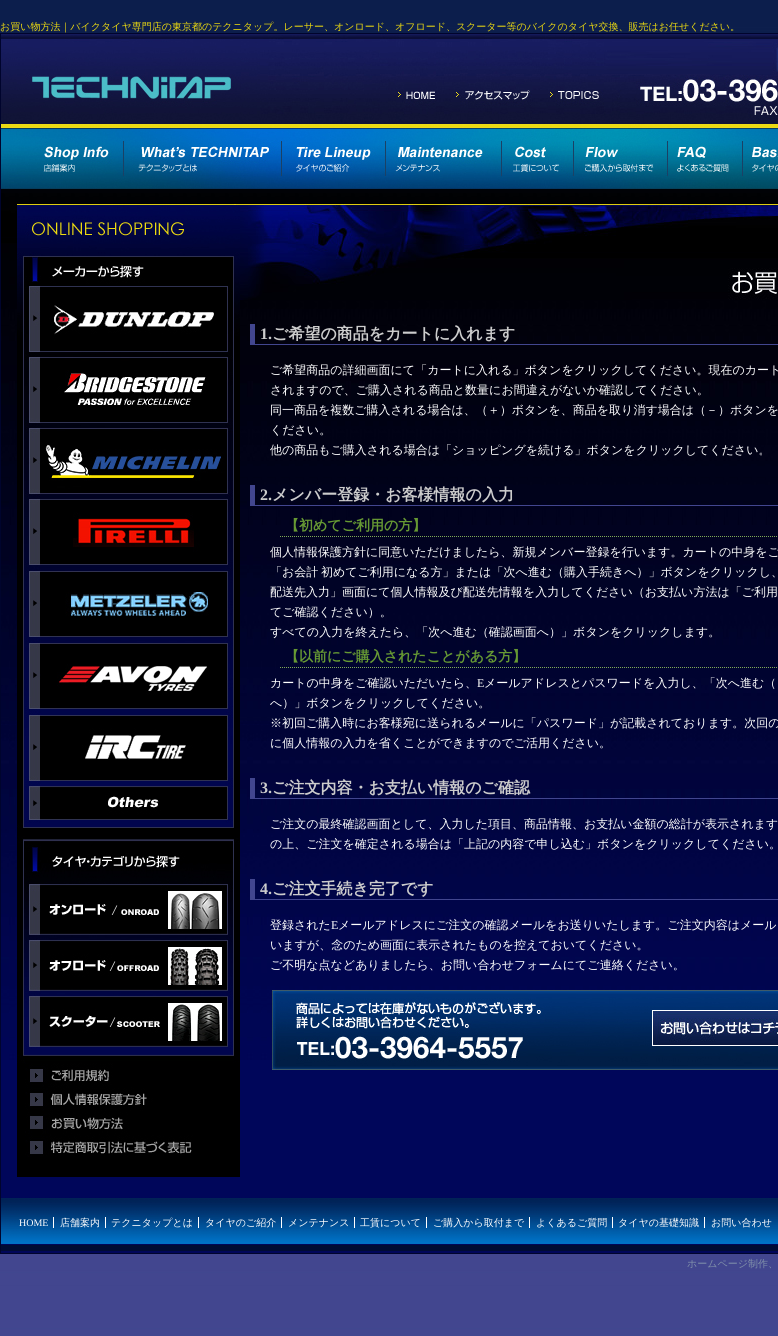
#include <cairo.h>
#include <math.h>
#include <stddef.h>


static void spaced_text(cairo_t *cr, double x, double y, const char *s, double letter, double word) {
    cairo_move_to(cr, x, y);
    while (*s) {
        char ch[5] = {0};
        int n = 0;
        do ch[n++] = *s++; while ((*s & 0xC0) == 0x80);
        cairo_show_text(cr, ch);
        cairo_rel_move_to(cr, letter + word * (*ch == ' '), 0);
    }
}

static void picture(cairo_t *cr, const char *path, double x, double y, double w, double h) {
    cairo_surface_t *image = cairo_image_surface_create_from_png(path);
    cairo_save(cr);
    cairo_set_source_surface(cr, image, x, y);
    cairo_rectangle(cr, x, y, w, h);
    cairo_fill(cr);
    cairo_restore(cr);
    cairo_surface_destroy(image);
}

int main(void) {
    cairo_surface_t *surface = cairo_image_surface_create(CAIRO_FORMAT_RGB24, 778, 1336);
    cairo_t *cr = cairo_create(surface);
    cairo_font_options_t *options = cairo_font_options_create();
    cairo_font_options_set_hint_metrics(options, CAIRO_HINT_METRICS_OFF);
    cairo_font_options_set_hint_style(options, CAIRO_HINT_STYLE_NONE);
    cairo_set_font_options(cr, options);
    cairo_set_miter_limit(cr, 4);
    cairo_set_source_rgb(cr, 1, 1, 1);
    cairo_paint(cr);
    picture(cr, "img1.png", 0, 0, 778, 1336);
    cairo_select_font_face(cr, "WenQuanYi Zen Hei Medium", CAIRO_FONT_SLANT_NORMAL, CAIRO_FONT_WEIGHT_NORMAL);
    cairo_set_font_size(cr, 10);
    cairo_set_source_rgb(cr, 0.922, 0.855, 0.063);
    cairo_move_to(cr, 0, 30);
    cairo_show_text(cr, "お買い物方法｜バイクタイヤ専門店の東京都のテクニタップ。レーサー、オンロード、オフロード、スクーター等のバイクのタイヤ交換、販売はお任せください。");
    cairo_rectangle(cr, 0.5, 33.5, 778, 1220);
    cairo_set_source_rgb(cr, 0, 0.016, 0.176);
    cairo_set_line_width(cr, 1);
    cairo_stroke(cr);
    picture(cr, "img2.png", 1, 34, 259, 90);
    picture(cr, "img3.png", 260, 34, 518, 90);
    picture(cr, "img4.png", 1, 124, 123, 65);
    picture(cr, "img5.png", 124, 124, 158, 65);
    picture(cr, "img6.png", 282, 124, 104, 65);
    picture(cr, "img7.png", 386, 124, 116, 65);
    picture(cr, "img8.png", 502, 124, 72, 65);
    picture(cr, "img9.png", 574, 124, 94, 65);
    picture(cr, "img10.png", 668, 124, 75, 65);
    picture(cr, "img11.png", 743, 124, 35, 65);
    cairo_set_source_rgb(cr, 0, 0.024, 0.353);
    cairo_rectangle(cr, 1, 1060, 777, 137);
    cairo_fill(cr);
    picture(cr, "img12.png", 1, 189, 777, 871);
    picture(cr, "img13.png", 17, 204, 223, 82);
    picture(cr, "img14.png", 17, 286, 223, 68);
    picture(cr, "img15.png", 17, 354, 223, 71);
    picture(cr, "img16.png", 17, 425, 223, 71);
    picture(cr, "img17.png", 17, 496, 223, 72);
    picture(cr, "img18.png", 17, 568, 223, 72);
    picture(cr, "img19.png", 17, 640, 223, 72);
    picture(cr, "img20.png", 17, 712, 223, 71);
    picture(cr, "img21.png", 17, 783, 223, 45);
    picture(cr, "img22.png", 17, 828, 223, 56);
    picture(cr, "img23.png", 17, 884, 223, 53);
    picture(cr, "img24.png", 17, 937, 223, 56);
    picture(cr, "img25.png", 17, 993, 223, 62);
    picture(cr, "img26.png", 17, 1055, 223, 32);
    picture(cr, "img27.png", 17, 1087, 223, 25);
    picture(cr, "img28.png", 17, 1112, 223, 23);
    picture(cr, "img29.png", 17, 1135, 223, 22);
    cairo_set_source_rgb(cr, 0, 0, 0);
    cairo_rectangle(cr, 17, 1157, 223, 20);
    cairo_fill(cr);
    picture(cr, "img30.png", 240, 204, 538, 96);
    cairo_set_source_rgb(cr, 0.259, 0.275, 0.561);
    cairo_rectangle(cr, 250, 344, 528, 1);
    cairo_fill(cr);
    cairo_rectangle(cr, 250, 324, 5, 21);
    cairo_fill(cr);
    cairo_select_font_face(cr, "Liberation Serif", CAIRO_FONT_SLANT_NORMAL, CAIRO_FONT_WEIGHT_BOLD);
    cairo_set_font_size(cr, 16);
    cairo_set_source_rgb(cr, 0.8, 0.8, 0.8);
    cairo_move_to(cr, 260, 339);
    cairo_show_text(cr, "1.");
    cairo_select_font_face(cr, "WenQuanYi Zen Hei", CAIRO_FONT_SLANT_NORMAL, CAIRO_FONT_WEIGHT_BOLD);
    cairo_move_to(cr, 272, 339);
    cairo_show_text(cr, "ご希望の商品をカートに入れます");
    cairo_select_font_face(cr, "WenQuanYi Zen Hei Medium", CAIRO_FONT_SLANT_NORMAL, CAIRO_FONT_WEIGHT_NORMAL);
    cairo_set_font_size(cr, 12);
    cairo_set_source_rgb(cr, 1, 1, 1);
    cairo_move_to(cr, 270, 374);
    cairo_show_text(cr, "ご希望商品の詳細画面にて「カートに入れる」ボタンをクリックしてください。現在のカート");
    cairo_move_to(cr, 270, 394);
    cairo_show_text(cr, "されますので、ご購入される商品と数量にお間違えがないか確認してください。");
    cairo_move_to(cr, 270, 414);
    cairo_show_text(cr, "同一商品を複数ご購入される場合は、（＋）ボタンを、商品を取り消す場合は（－）ボタンを");
    cairo_move_to(cr, 270, 434);
    cairo_show_text(cr, "ください。");
    cairo_move_to(cr, 270, 454);
    cairo_show_text(cr, "他の商品もご購入される場合は「ショッピングを続ける」ボタンをクリックしてください。");
    cairo_set_source_rgb(cr, 0.259, 0.275, 0.561);
    cairo_rectangle(cr, 250, 505, 528, 1);
    cairo_fill(cr);
    cairo_rectangle(cr, 250, 485, 5, 21);
    cairo_fill(cr);
    cairo_select_font_face(cr, "Liberation Serif", CAIRO_FONT_SLANT_NORMAL, CAIRO_FONT_WEIGHT_BOLD);
    cairo_set_font_size(cr, 16);
    cairo_set_source_rgb(cr, 0.8, 0.8, 0.8);
    cairo_move_to(cr, 260, 500);
    cairo_show_text(cr, "2.");
    cairo_select_font_face(cr, "WenQuanYi Zen Hei", CAIRO_FONT_SLANT_NORMAL, CAIRO_FONT_WEIGHT_BOLD);
    cairo_move_to(cr, 272, 500);
    cairo_show_text(cr, "メンバー登録・お客様情報の入力");
    cairo_new_path(cr);
    cairo_move_to(cr, 280, 536.5);
    cairo_line_to(cr, 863, 536.5);
    cairo_set_source_rgb(cr, 0.506, 0.667, 0.341);
    cairo_set_dash(cr, (double[]){1, 1}, 2, 0);
    cairo_stroke(cr);
    cairo_set_font_size(cr, 14);
    cairo_set_source_rgb(cr, 0.4, 0.6, 0.2);
    cairo_move_to(cr, 285, 530);
    cairo_show_text(cr, "【初めてご利用の方】");
    cairo_select_font_face(cr, "WenQuanYi Zen Hei Medium", CAIRO_FONT_SLANT_NORMAL, CAIRO_FONT_WEIGHT_NORMAL);
    cairo_set_font_size(cr, 12);
    cairo_set_source_rgb(cr, 1, 1, 1);
    cairo_move_to(cr, 270, 556);
    cairo_show_text(cr, "個人情報保護方針に同意いただけましたら、新規メンバー登録を行います。カートの中身をご");
    spaced_text(cr, 270, 576, "「お会計 初めてご利用になる方」または「次へ進む（購入手続きへ）」ボタンをクリックし、", 0, -1);
    cairo_move_to(cr, 270, 596);
    cairo_show_text(cr, "配送先入力」画面にて個人情報及び配送先情報を入力してください（お支払い方法は「ご利用");
    cairo_move_to(cr, 270, 616);
    cairo_show_text(cr, "てご確認ください）。");
    cairo_move_to(cr, 270, 636);
    cairo_show_text(cr, "すべての入力を終えたら、「次へ進む（確認画面へ）」ボタンをクリックします。");
    cairo_new_path(cr);
    cairo_move_to(cr, 280, 667.5);
    cairo_line_to(cr, 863, 667.5);
    cairo_set_source_rgb(cr, 0.506, 0.667, 0.341);
    cairo_stroke(cr);
    cairo_select_font_face(cr, "WenQuanYi Zen Hei", CAIRO_FONT_SLANT_NORMAL, CAIRO_FONT_WEIGHT_BOLD);
    cairo_set_font_size(cr, 14);
    cairo_set_source_rgb(cr, 0.4, 0.6, 0.2);
    cairo_move_to(cr, 285, 661);
    cairo_show_text(cr, "【以前にご購入されたことがある方】");
    cairo_select_font_face(cr, "WenQuanYi Zen Hei Medium", CAIRO_FONT_SLANT_NORMAL, CAIRO_FONT_WEIGHT_NORMAL);
    cairo_set_font_size(cr, 12);
    cairo_set_source_rgb(cr, 1, 1, 1);
    cairo_move_to(cr, 270, 687);
    cairo_show_text(cr, "カートの中身をご確認いただいたら、");
    cairo_select_font_face(cr, "Liberation Serif", CAIRO_FONT_SLANT_NORMAL, CAIRO_FONT_WEIGHT_NORMAL);
    cairo_move_to(cr, 477, 687);
    cairo_show_text(cr, "E");
    cairo_select_font_face(cr, "WenQuanYi Zen Hei Medium", CAIRO_FONT_SLANT_NORMAL, CAIRO_FONT_WEIGHT_NORMAL);
    cairo_move_to(cr, 484, 687);
    cairo_show_text(cr, "メールアドレスとパスワードを入力し、「次へ進む（");
    cairo_move_to(cr, 270, 707);
    cairo_show_text(cr, "へ）」ボタンをクリックしてください。");
    cairo_move_to(cr, 270, 727);
    cairo_show_text(cr, "※初回ご購入時にお客様宛に送られるメールに「パスワード」が記載されております。次回の");
    cairo_move_to(cr, 270, 747);
    cairo_show_text(cr, "に個人情報の入力を省くことができますのでご活用ください。");
    cairo_set_source_rgb(cr, 0.259, 0.275, 0.561);
    cairo_rectangle(cr, 250, 798, 528, 1);
    cairo_fill(cr);
    cairo_rectangle(cr, 250, 778, 5, 21);
    cairo_fill(cr);
    cairo_select_font_face(cr, "Liberation Serif", CAIRO_FONT_SLANT_NORMAL, CAIRO_FONT_WEIGHT_BOLD);
    cairo_set_font_size(cr, 16);
    cairo_set_source_rgb(cr, 0.8, 0.8, 0.8);
    cairo_move_to(cr, 260, 793);
    cairo_show_text(cr, "3.");
    cairo_select_font_face(cr, "WenQuanYi Zen Hei", CAIRO_FONT_SLANT_NORMAL, CAIRO_FONT_WEIGHT_BOLD);
    cairo_move_to(cr, 272, 793);
    cairo_show_text(cr, "ご注文内容・お支払い情報のご確認");
    cairo_select_font_face(cr, "WenQuanYi Zen Hei Medium", CAIRO_FONT_SLANT_NORMAL, CAIRO_FONT_WEIGHT_NORMAL);
    cairo_set_font_size(cr, 12);
    cairo_set_source_rgb(cr, 1, 1, 1);
    cairo_move_to(cr, 270, 828);
    cairo_show_text(cr, "ご注文の最終確認画面として、入力した項目、商品情報、お支払い金額の総計が表示されます");
    cairo_move_to(cr, 270, 848);
    cairo_show_text(cr, "の上、ご注文を確定される場合は「上記の内容で申し込む」ボタンをクリックしてください。");
    cairo_set_source_rgb(cr, 0.259, 0.275, 0.561);
    cairo_rectangle(cr, 250, 899, 528, 1);
    cairo_fill(cr);
    cairo_rectangle(cr, 250, 879, 5, 21);
    cairo_fill(cr);
    cairo_select_font_face(cr, "Liberation Serif", CAIRO_FONT_SLANT_NORMAL, CAIRO_FONT_WEIGHT_BOLD);
    cairo_set_font_size(cr, 16);
    cairo_set_source_rgb(cr, 0.8, 0.8, 0.8);
    cairo_move_to(cr, 260, 894);
    cairo_show_text(cr, "4.");
    cairo_select_font_face(cr, "WenQuanYi Zen Hei", CAIRO_FONT_SLANT_NORMAL, CAIRO_FONT_WEIGHT_BOLD);
    cairo_move_to(cr, 272, 894);
    cairo_show_text(cr, "ご注文手続き完了です");
    cairo_select_font_face(cr, "WenQuanYi Zen Hei Medium", CAIRO_FONT_SLANT_NORMAL, CAIRO_FONT_WEIGHT_NORMAL);
    cairo_set_font_size(cr, 12);
    cairo_set_source_rgb(cr, 1, 1, 1);
    cairo_move_to(cr, 270, 929);
    cairo_show_text(cr, "登録された");
    cairo_select_font_face(cr, "Liberation Serif", CAIRO_FONT_SLANT_NORMAL, CAIRO_FONT_WEIGHT_NORMAL);
    cairo_move_to(cr, 331, 929);
    cairo_show_text(cr, "E");
    cairo_select_font_face(cr, "WenQuanYi Zen Hei Medium", CAIRO_FONT_SLANT_NORMAL, CAIRO_FONT_WEIGHT_NORMAL);
    cairo_move_to(cr, 338, 929);
    cairo_show_text(cr, "メールアドレスにご注文の確認メールをお送りいたします。ご注文内容はメール");
    cairo_move_to(cr, 270, 949);
    cairo_show_text(cr, "いますが、念のため画面に表示されたものを控えておいてください。");
    cairo_move_to(cr, 270, 969);
    cairo_show_text(cr, "ご不明な点などありましたら、お問い合わせフォームにてご連絡ください。");
    picture(cr, "img31.png", 272, 990, 506, 80);
    picture(cr, "img32.png", 652, 1010, 126, 36);
    picture(cr, "img33.png", 1, 1197, 777, 56);
    cairo_select_font_face(cr, "Liberation Serif", CAIRO_FONT_SLANT_NORMAL, CAIRO_FONT_WEIGHT_NORMAL);
    cairo_set_font_size(cr, 10);
    cairo_move_to(cr, 19, 1226);
    cairo_show_text(cr, "HOME");
    cairo_rectangle(cr, 53, 1217, 1, 11);
    cairo_fill(cr);
    cairo_select_font_face(cr, "WenQuanYi Zen Hei Medium", CAIRO_FONT_SLANT_NORMAL, CAIRO_FONT_WEIGHT_NORMAL);
    cairo_move_to(cr, 60, 1226);
    cairo_show_text(cr, "店舗案内");
    cairo_rectangle(cr, 105, 1217, 1, 11);
    cairo_fill(cr);
    cairo_move_to(cr, 111, 1226);
    cairo_show_text(cr, "テクニタップとは");
    cairo_rectangle(cr, 198, 1217, 1, 11);
    cairo_fill(cr);
    cairo_move_to(cr, 205, 1226);
    cairo_show_text(cr, "タイヤのご紹介");
    cairo_rectangle(cr, 281, 1217, 1, 11);
    cairo_fill(cr);
    cairo_move_to(cr, 288, 1226);
    cairo_show_text(cr, "メンテナンス");
    cairo_rectangle(cr, 354, 1217, 1, 11);
    cairo_fill(cr);
    cairo_move_to(cr, 360, 1226);
    cairo_show_text(cr, "工賃について");
    cairo_rectangle(cr, 426, 1217, 1, 11);
    cairo_fill(cr);
    cairo_move_to(cr, 433, 1226);
    cairo_show_text(cr, "ご購入から取付まで");
    cairo_rectangle(cr, 529, 1217, 1, 11);
    cairo_fill(cr);
    cairo_move_to(cr, 536, 1226);
    cairo_show_text(cr, "よくあるご質問");
    cairo_rectangle(cr, 612, 1217, 1, 11);
    cairo_fill(cr);
    cairo_move_to(cr, 618, 1226);
    cairo_show_text(cr, "タイヤの基礎知識");
    cairo_rectangle(cr, 704, 1217, 1, 11);
    cairo_fill(cr);
    cairo_move_to(cr, 711, 1226);
    cairo_show_text(cr, "お問い合わせ");
    cairo_set_source_rgb(cr, 0.502, 0.565, 0.667);
    cairo_move_to(cr, 687, 1267);
    cairo_show_text(cr, "ホームページ制作、");
    cairo_surface_write_to_png(surface, "page.png");
    cairo_font_options_destroy(options);
    cairo_destroy(cr);
    cairo_surface_destroy(surface);
    return 0;
}
